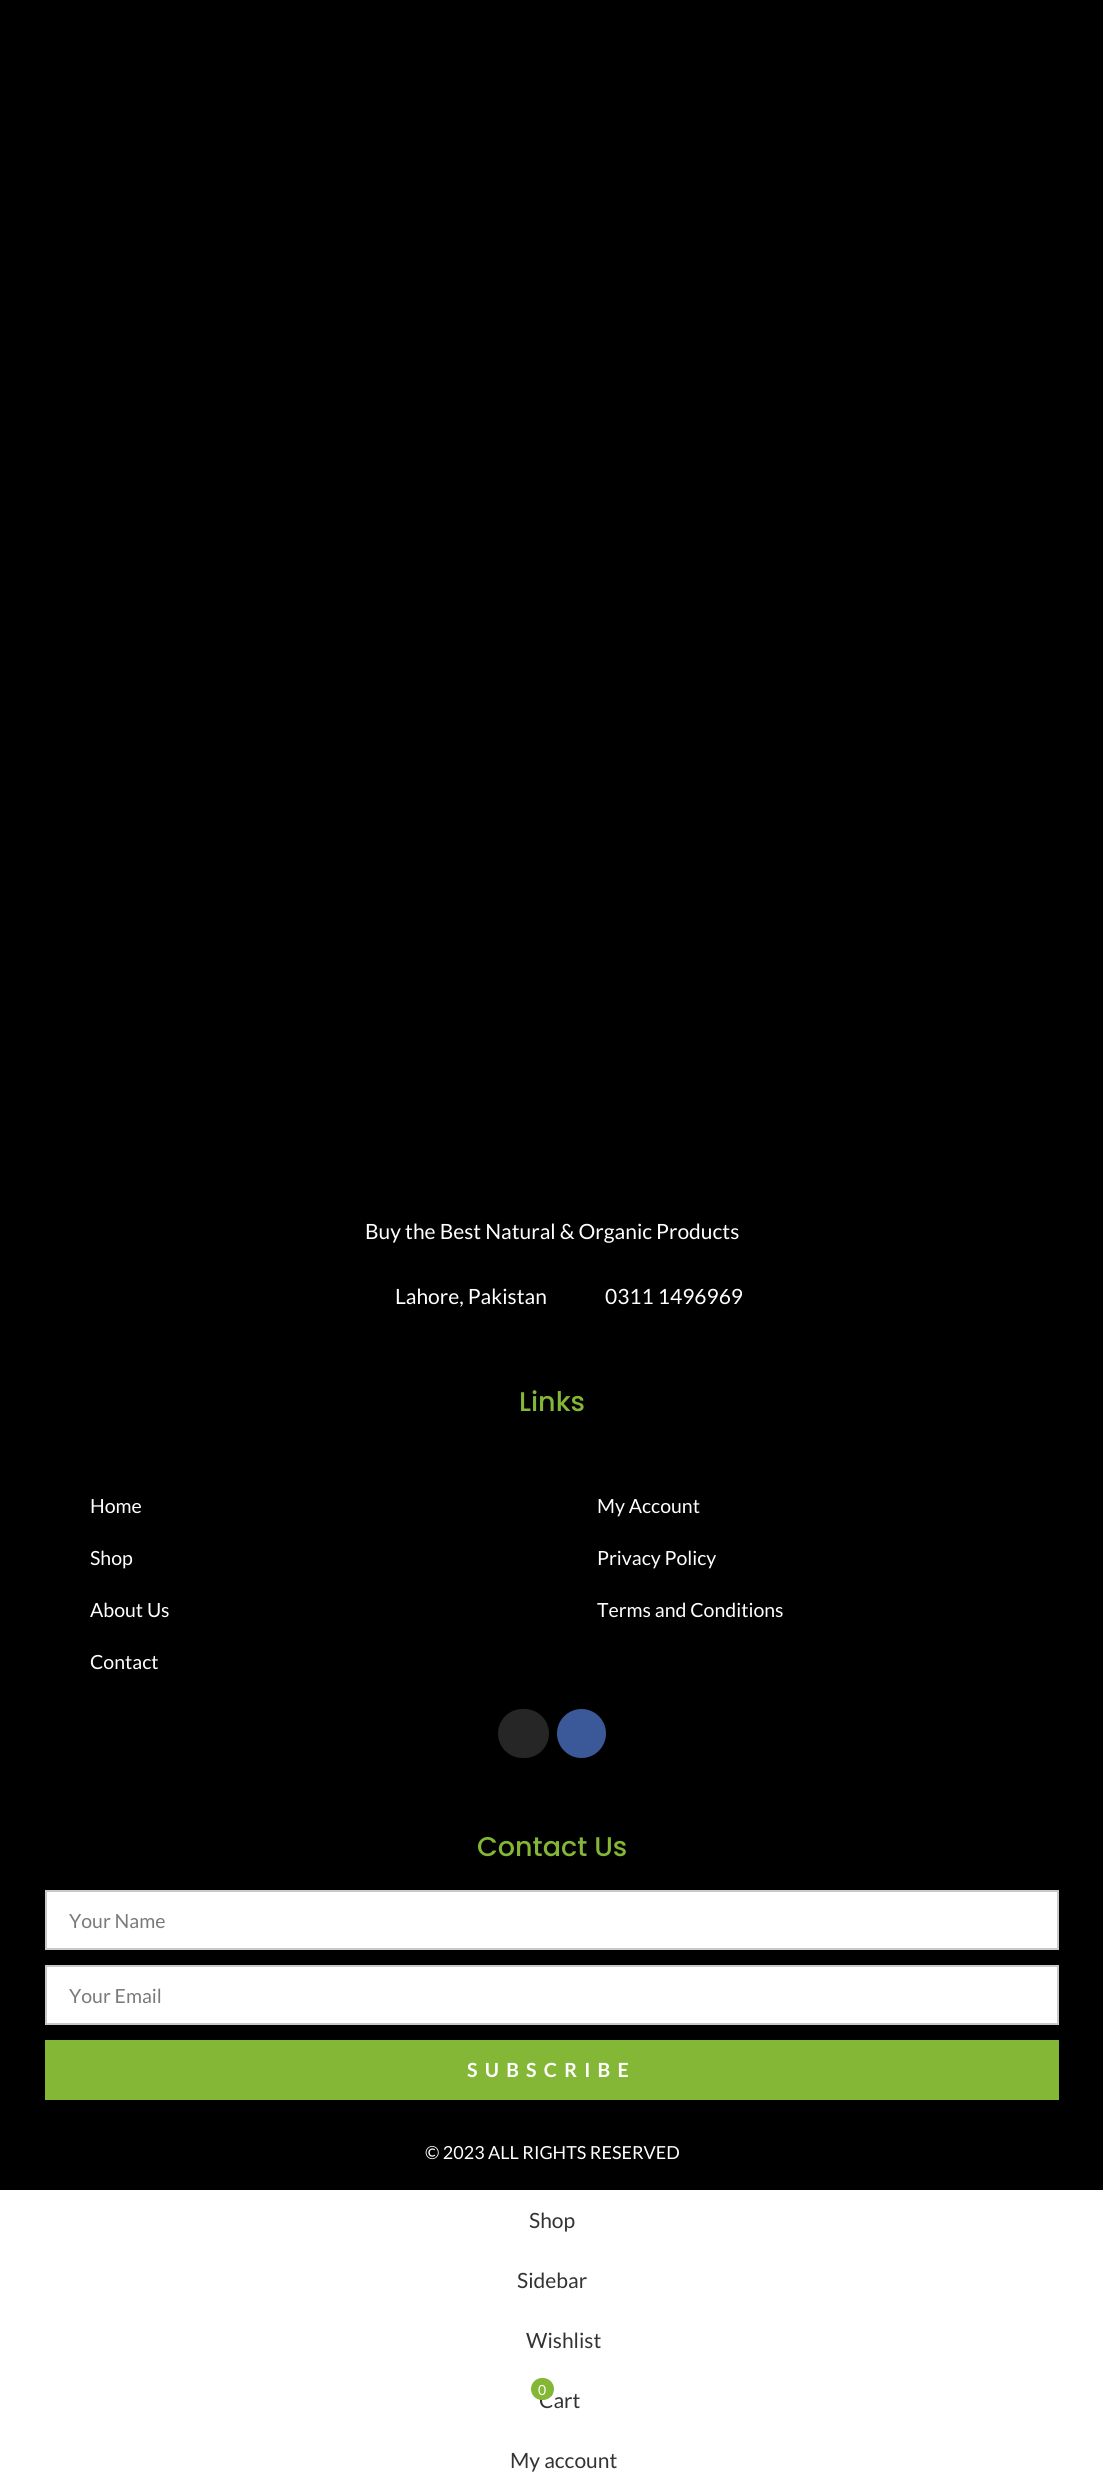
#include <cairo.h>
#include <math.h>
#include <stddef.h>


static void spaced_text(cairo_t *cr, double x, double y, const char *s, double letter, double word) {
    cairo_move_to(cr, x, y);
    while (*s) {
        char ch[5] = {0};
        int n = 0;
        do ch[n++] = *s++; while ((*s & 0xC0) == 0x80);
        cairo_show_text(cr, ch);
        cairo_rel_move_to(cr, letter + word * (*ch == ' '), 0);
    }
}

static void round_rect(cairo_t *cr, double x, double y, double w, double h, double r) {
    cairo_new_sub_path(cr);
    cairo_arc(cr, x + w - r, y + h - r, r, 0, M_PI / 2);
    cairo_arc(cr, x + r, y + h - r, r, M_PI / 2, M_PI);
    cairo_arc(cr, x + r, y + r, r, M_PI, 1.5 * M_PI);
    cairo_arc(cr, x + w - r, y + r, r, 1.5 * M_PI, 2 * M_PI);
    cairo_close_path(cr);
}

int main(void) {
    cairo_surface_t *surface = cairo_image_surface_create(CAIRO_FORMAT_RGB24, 1103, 2490);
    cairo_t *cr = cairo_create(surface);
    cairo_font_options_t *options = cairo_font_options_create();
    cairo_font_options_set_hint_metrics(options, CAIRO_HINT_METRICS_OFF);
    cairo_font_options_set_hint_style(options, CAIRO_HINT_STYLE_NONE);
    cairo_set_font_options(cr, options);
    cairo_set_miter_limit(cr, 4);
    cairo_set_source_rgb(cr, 1, 1, 1);
    cairo_paint(cr);
    cairo_set_source_rgb(cr, 0, 0, 0);
    cairo_rectangle(cr, 0, 0, 1103, 2190);
    cairo_fill(cr);
    cairo_select_font_face(cr, "Lato", CAIRO_FONT_SLANT_NORMAL, CAIRO_FONT_WEIGHT_NORMAL);
    cairo_set_font_size(cr, 21);
    cairo_set_source_rgb(cr, 1, 1, 1);
    cairo_move_to(cr, 365, 1239);
    cairo_show_text(cr, "Buy the Best Natural & Organic Products");
    cairo_move_to(cr, 395, 1304);
    cairo_show_text(cr, "Lahore, Pakistan");
    cairo_move_to(cr, 605, 1304);
    cairo_show_text(cr, "0311 1496969");
    cairo_select_font_face(cr, "Poppins Medium", CAIRO_FONT_SLANT_NORMAL, CAIRO_FONT_WEIGHT_NORMAL);
    cairo_set_font_size(cr, 27);
    cairo_set_source_rgb(cr, 0.514, 0.718, 0.208);
    cairo_move_to(cr, 519, 1411);
    cairo_show_text(cr, "Links");
    cairo_select_font_face(cr, "Lato", CAIRO_FONT_SLANT_NORMAL, CAIRO_FONT_WEIGHT_NORMAL);
    cairo_set_font_size(cr, 19.5);
    cairo_set_source_rgb(cr, 1, 1, 1);
    cairo_move_to(cr, 90, 1513);
    cairo_show_text(cr, "Home");
    cairo_move_to(cr, 90, 1565);
    cairo_show_text(cr, "Shop");
    cairo_move_to(cr, 90, 1617);
    cairo_show_text(cr, "About Us");
    cairo_move_to(cr, 90, 1669);
    cairo_show_text(cr, "Contact");
    cairo_move_to(cr, 597, 1513);
    cairo_show_text(cr, "My Account");
    cairo_move_to(cr, 597, 1565);
    cairo_show_text(cr, "Privacy Policy");
    cairo_move_to(cr, 597, 1617);
    cairo_show_text(cr, "Terms and Conditions");
    cairo_set_source_rgb(cr, 0.149, 0.149, 0.149);
    round_rect(cr, 498, 1709, 51, 49, 24.5);
    cairo_fill(cr);
    cairo_set_source_rgb(cr, 0.231, 0.349, 0.596);
    cairo_arc(cr, 581.5, 1733.5, 24.5, 0, 2 * M_PI);
    cairo_fill(cr);
    cairo_select_font_face(cr, "Poppins Medium", CAIRO_FONT_SLANT_NORMAL, CAIRO_FONT_WEIGHT_NORMAL);
    cairo_set_font_size(cr, 27);
    cairo_set_source_rgb(cr, 0.514, 0.718, 0.208);
    cairo_move_to(cr, 477, 1856);
    cairo_show_text(cr, "Contact Us");
    cairo_set_source_rgb(cr, 1, 1, 1);
    cairo_rectangle(cr, 46, 1891, 1012, 58);
    cairo_fill_preserve(cr);
    cairo_set_source_rgb(cr, 0.788, 0.788, 0.788);
    cairo_stroke(cr);
    cairo_select_font_face(cr, "Lato", CAIRO_FONT_SLANT_NORMAL, CAIRO_FONT_WEIGHT_NORMAL);
    cairo_set_font_size(cr, 19.5);
    cairo_set_source_rgb(cr, 0.475, 0.478, 0.486);
    cairo_move_to(cr, 69, 1928);
    cairo_show_text(cr, "Your Name");
    cairo_set_source_rgb(cr, 1, 1, 1);
    cairo_rectangle(cr, 46, 1966, 1012, 58);
    cairo_fill_preserve(cr);
    cairo_set_source_rgb(cr, 0.788, 0.788, 0.788);
    cairo_stroke(cr);
    cairo_set_source_rgb(cr, 0.475, 0.478, 0.486);
    cairo_move_to(cr, 69, 2003);
    cairo_show_text(cr, "Your Email");
    cairo_set_source_rgb(cr, 0.514, 0.718, 0.208);
    cairo_rectangle(cr, 45, 2040, 1014, 60);
    cairo_fill(cr);
    cairo_select_font_face(cr, "Lato", CAIRO_FONT_SLANT_NORMAL, CAIRO_FONT_WEIGHT_BOLD);
    cairo_set_source_rgb(cr, 1, 1, 1);
    spaced_text(cr, 467, 2077, "SUBSCRIBE", 7.25, 0);
    cairo_select_font_face(cr, "Lato", CAIRO_FONT_SLANT_NORMAL, CAIRO_FONT_WEIGHT_NORMAL);
    cairo_set_font_size(cr, 18);
    cairo_move_to(cr, 425, 2159);
    cairo_show_text(cr, "© 2023 ALL RIGHTS RESERVED");
    cairo_set_font_size(cr, 21);
    cairo_set_source_rgb(cr, 0.2, 0.2, 0.2);
    cairo_move_to(cr, 529, 2228);
    cairo_show_text(cr, "Shop");
    cairo_move_to(cr, 517, 2288);
    cairo_show_text(cr, "Sidebar");
    cairo_move_to(cr, 526, 2348);
    cairo_show_text(cr, "Wishlist");
    cairo_move_to(cr, 539, 2408);
    cairo_show_text(cr, "Cart");
    cairo_set_source_rgb(cr, 0.514, 0.718, 0.208);
    round_rect(cr, 531, 2378, 23, 22, 11);
    cairo_fill(cr);
    cairo_set_font_size(cr, 14);
    cairo_set_source_rgb(cr, 1, 1, 1);
    cairo_move_to(cr, 538, 2395);
    cairo_show_text(cr, "0");
    cairo_set_font_size(cr, 21);
    cairo_set_source_rgb(cr, 0.2, 0.2, 0.2);
    cairo_move_to(cr, 510, 2468);
    cairo_show_text(cr, "My account");
    cairo_surface_write_to_png(surface, "page.png");
    cairo_font_options_destroy(options);
    cairo_destroy(cr);
    cairo_surface_destroy(surface);
    return 0;
}
